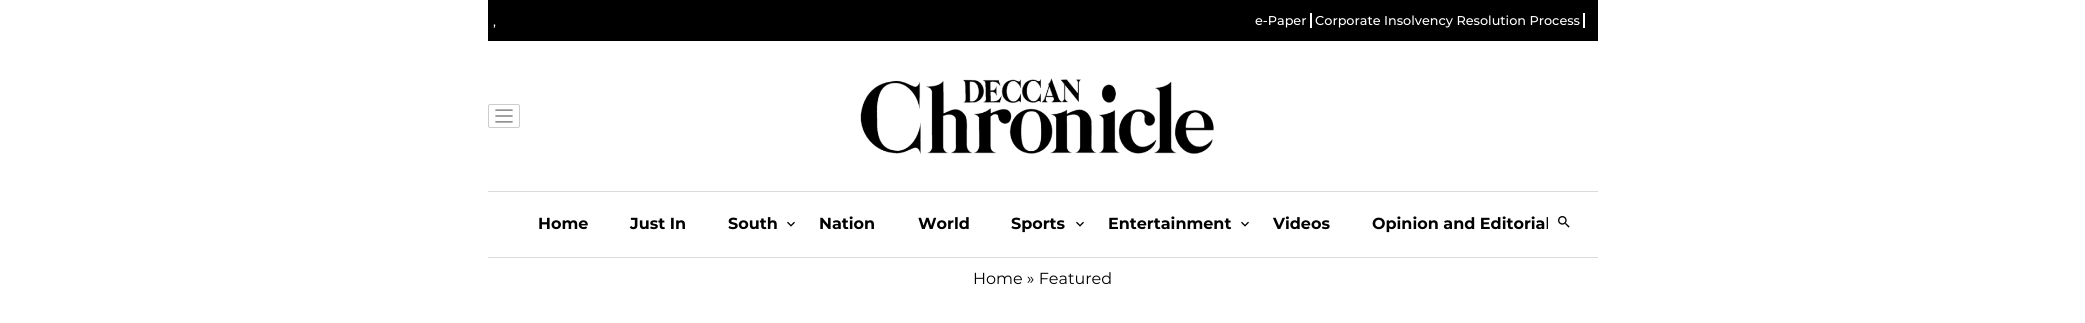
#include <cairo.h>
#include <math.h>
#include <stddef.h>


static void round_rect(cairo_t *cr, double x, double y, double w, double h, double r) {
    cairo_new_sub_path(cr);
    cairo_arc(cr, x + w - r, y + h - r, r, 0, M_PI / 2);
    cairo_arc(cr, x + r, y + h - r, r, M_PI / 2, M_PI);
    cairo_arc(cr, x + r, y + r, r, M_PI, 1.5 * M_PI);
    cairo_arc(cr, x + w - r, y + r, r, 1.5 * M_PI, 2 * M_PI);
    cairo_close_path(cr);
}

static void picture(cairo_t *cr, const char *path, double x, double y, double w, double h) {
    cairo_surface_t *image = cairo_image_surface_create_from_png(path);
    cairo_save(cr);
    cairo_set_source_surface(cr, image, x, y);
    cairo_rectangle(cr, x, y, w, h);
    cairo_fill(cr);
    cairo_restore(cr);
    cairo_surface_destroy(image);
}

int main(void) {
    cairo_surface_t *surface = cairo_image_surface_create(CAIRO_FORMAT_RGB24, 2085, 323);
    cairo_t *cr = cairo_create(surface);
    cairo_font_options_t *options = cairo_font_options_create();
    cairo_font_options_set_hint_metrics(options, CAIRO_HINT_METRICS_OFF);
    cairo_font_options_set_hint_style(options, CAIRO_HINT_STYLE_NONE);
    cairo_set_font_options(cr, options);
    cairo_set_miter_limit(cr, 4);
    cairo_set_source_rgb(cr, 1, 1, 1);
    cairo_paint(cr);
    cairo_set_source_rgb(cr, 0, 0, 0);
    cairo_rectangle(cr, 488, 0, 1110, 41);
    cairo_fill(cr);
    cairo_select_font_face(cr, "Montserrat Medium", CAIRO_FONT_SLANT_NORMAL, CAIRO_FONT_WEIGHT_NORMAL);
    cairo_set_font_size(cr, 12.8);
    cairo_set_source_rgb(cr, 1, 1, 1);
    cairo_move_to(cr, 493, 26);
    cairo_show_text(cr, ",");
    cairo_move_to(cr, 1255, 25);
    cairo_show_text(cr, "e-Paper");
    cairo_rectangle(cr, 1310, 13, 2, 15);
    cairo_fill(cr);
    cairo_move_to(cr, 1315, 25);
    cairo_show_text(cr, "Corporate Insolvency Resolution Process");
    cairo_rectangle(cr, 1583, 13, 2, 15);
    cairo_fill(cr);
    cairo_set_source_rgb(cr, 0.859, 0.859, 0.859);
    cairo_rectangle(cr, 488, 191, 1110, 1);
    cairo_fill(cr);
    picture(cr, "img1.png", 495, 109, 18, 14);
    round_rect(cr, 488.5, 104.5, 31, 23, 1.5);
    cairo_set_source_rgb(cr, 0.8, 0.8, 0.8);
    cairo_set_line_width(cr, 1);
    cairo_stroke(cr);
    picture(cr, "img2.png", 860, 78, 354, 76);
    cairo_set_source_rgb(cr, 0.859, 0.859, 0.859);
    cairo_rectangle(cr, 488, 257, 1110, 1);
    cairo_fill(cr);
    cairo_select_font_face(cr, "Montserrat", CAIRO_FONT_SLANT_NORMAL, CAIRO_FONT_WEIGHT_BOLD);
    cairo_set_font_size(cr, 16);
    cairo_set_source_rgb(cr, 0, 0, 0);
    cairo_move_to(cr, 538, 229);
    cairo_show_text(cr, "Home");
    cairo_move_to(cr, 630, 229);
    cairo_show_text(cr, "Just In");
    cairo_move_to(cr, 728, 229);
    cairo_show_text(cr, "South");
    picture(cr, "img3.png", 787, 221, 8, 6);
    cairo_move_to(cr, 819, 229);
    cairo_show_text(cr, "Nation");
    cairo_move_to(cr, 918, 229);
    cairo_show_text(cr, "World");
    cairo_move_to(cr, 1011, 229);
    cairo_show_text(cr, "Sports");
    picture(cr, "img3.png", 1076, 221, 8, 6);
    cairo_move_to(cr, 1108, 229);
    cairo_show_text(cr, "Entertainment");
    picture(cr, "img3.png", 1241, 221, 8, 6);
    cairo_move_to(cr, 1273, 229);
    cairo_show_text(cr, "Videos");
    cairo_save(cr);
    cairo_rectangle(cr, 538, 192, 1010, 65);
    cairo_clip(cr);
    cairo_move_to(cr, 1372, 229);
    cairo_show_text(cr, "Opinion and Editorial");
    cairo_restore(cr);
    picture(cr, "img4.png", 1558, 216, 12, 12);
    cairo_select_font_face(cr, "Montserrat", CAIRO_FONT_SLANT_NORMAL, CAIRO_FONT_WEIGHT_NORMAL);
    cairo_move_to(cr, 973, 284);
    cairo_show_text(cr, "Home » Featured");
    cairo_surface_write_to_png(surface, "page.png");
    cairo_font_options_destroy(options);
    cairo_destroy(cr);
    cairo_surface_destroy(surface);
    return 0;
}
